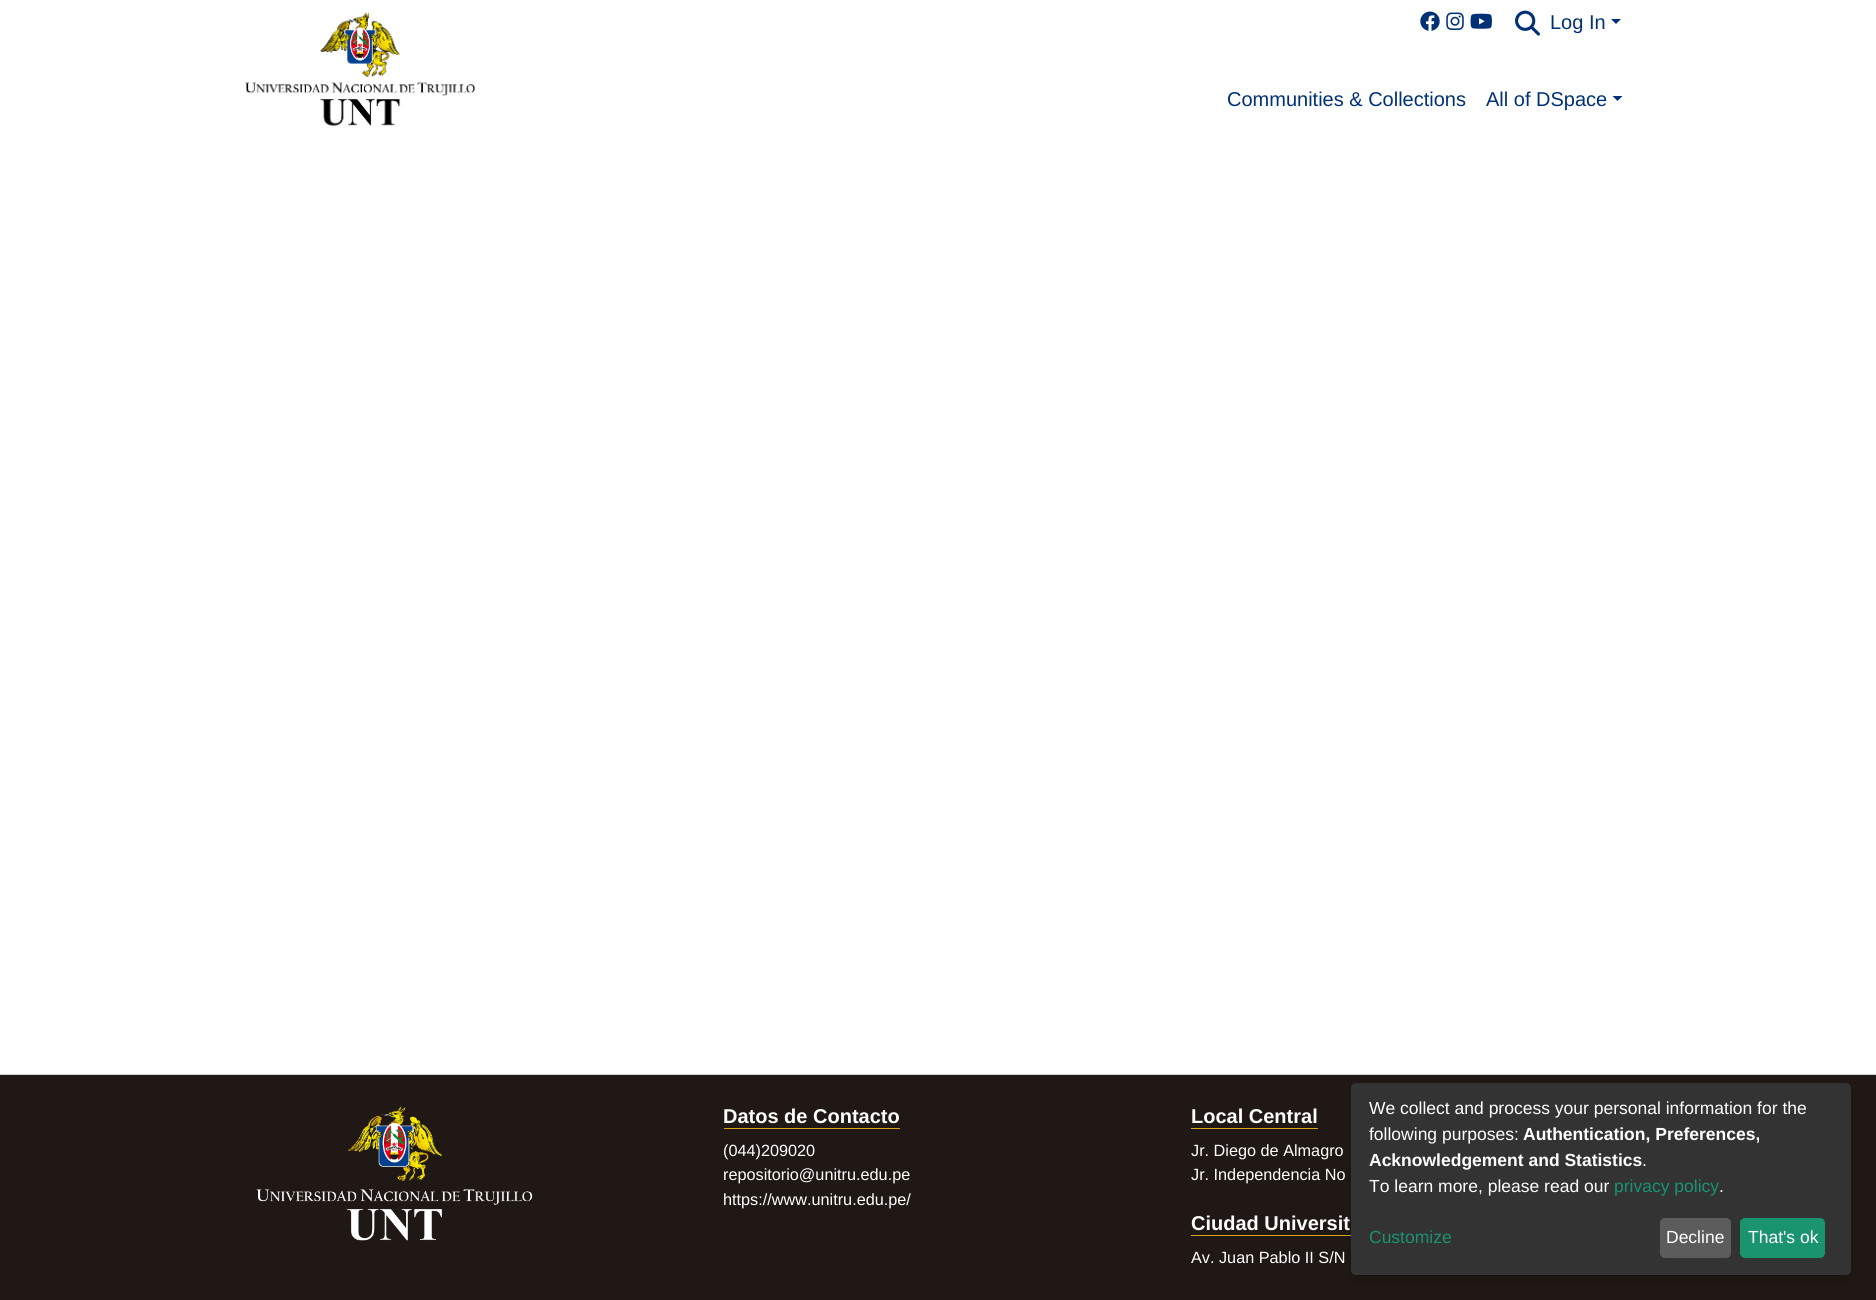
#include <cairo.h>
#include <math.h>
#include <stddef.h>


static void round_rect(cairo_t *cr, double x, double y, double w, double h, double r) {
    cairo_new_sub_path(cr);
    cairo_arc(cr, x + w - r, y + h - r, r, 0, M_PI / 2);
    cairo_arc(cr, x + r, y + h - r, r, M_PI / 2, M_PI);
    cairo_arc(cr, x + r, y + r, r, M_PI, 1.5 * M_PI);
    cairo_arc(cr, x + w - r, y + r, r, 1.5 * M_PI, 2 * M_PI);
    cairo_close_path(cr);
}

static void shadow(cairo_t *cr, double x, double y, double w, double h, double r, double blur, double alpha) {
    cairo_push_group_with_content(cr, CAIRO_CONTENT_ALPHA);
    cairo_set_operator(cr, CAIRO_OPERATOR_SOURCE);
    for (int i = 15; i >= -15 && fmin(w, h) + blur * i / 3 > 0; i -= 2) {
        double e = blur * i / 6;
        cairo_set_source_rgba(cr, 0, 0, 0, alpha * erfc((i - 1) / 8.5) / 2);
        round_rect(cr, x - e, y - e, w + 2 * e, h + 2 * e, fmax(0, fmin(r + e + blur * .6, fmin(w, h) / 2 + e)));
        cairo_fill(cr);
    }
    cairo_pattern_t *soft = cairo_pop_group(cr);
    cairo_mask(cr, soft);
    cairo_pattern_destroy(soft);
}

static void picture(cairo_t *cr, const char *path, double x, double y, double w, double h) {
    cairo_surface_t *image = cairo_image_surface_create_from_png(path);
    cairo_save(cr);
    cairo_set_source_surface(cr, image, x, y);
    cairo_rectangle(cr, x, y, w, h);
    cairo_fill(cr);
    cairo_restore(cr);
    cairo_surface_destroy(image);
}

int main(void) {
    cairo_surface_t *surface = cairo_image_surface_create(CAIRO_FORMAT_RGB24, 1876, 1300);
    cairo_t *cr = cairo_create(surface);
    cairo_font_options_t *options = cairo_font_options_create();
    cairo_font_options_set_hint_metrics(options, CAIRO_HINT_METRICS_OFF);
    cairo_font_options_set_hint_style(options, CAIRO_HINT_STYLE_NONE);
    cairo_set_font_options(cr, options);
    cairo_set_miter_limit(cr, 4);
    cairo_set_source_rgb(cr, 1, 1, 1);
    cairo_paint(cr);
    picture(cr, "img1.png", 1420, 11, 20, 20);
    picture(cr, "img2.png", 1446, 12, 18, 18);
    picture(cr, "img3.png", 1470, 13, 22, 16);
    picture(cr, "img4.png", 1515, 10, 25, 26);
    cairo_select_font_face(cr, "Liberation Sans", CAIRO_FONT_SLANT_NORMAL, CAIRO_FONT_WEIGHT_NORMAL);
    cairo_set_font_size(cr, 20);
    cairo_set_source_rgb(cr, 0, 0.192, 0.467);
    cairo_move_to(cr, 1550, 29);
    cairo_show_text(cr, "Log In");
    cairo_new_path(cr);
    cairo_move_to(cr, 1611, 19);
    cairo_line_to(cr, 1621, 19);
    cairo_line_to(cr, 1616, 24);
    cairo_close_path(cr);
    cairo_fill(cr);
    picture(cr, "img5.png", 245, 12, 230, 114);
    cairo_move_to(cr, 1227, 106);
    cairo_show_text(cr, "Communities & Collections");
    cairo_move_to(cr, 1486, 106);
    cairo_show_text(cr, "All of DSpace");
    cairo_new_path(cr);
    cairo_move_to(cr, 1612.5, 96);
    cairo_line_to(cr, 1622.5, 96);
    cairo_line_to(cr, 1617.5, 101);
    cairo_close_path(cr);
    cairo_fill(cr);
    cairo_set_source_rgb(cr, 0.808, 0.831, 0.855);
    cairo_rectangle(cr, 0, 1074, 1876, 1);
    cairo_fill(cr);
    cairo_set_source_rgb(cr, 0.125, 0.094, 0.082);
    cairo_rectangle(cr, 0, 1075, 1876, 225);
    cairo_fill(cr);
    picture(cr, "img6.png", 256, 1106, 277, 135);
    cairo_select_font_face(cr, "Liberation Sans", CAIRO_FONT_SLANT_NORMAL, CAIRO_FONT_WEIGHT_BOLD);
    cairo_set_source_rgb(cr, 1, 1, 1);
    cairo_move_to(cr, 723, 1123);
    cairo_show_text(cr, "Datos de Contacto");
    cairo_set_source_rgb(cr, 0.863, 0.655, 0.11);
    cairo_rectangle(cr, 724, 1128, 176, 1);
    cairo_fill(cr);
    cairo_select_font_face(cr, "Liberation Sans", CAIRO_FONT_SLANT_NORMAL, CAIRO_FONT_WEIGHT_NORMAL);
    cairo_set_font_size(cr, 16.25);
    cairo_set_source_rgb(cr, 1, 1, 1);
    cairo_move_to(cr, 723, 1156);
    cairo_show_text(cr, "(044)209020");
    cairo_move_to(cr, 723, 1180);
    cairo_show_text(cr, "repositorio@unitru.edu.pe");
    cairo_move_to(cr, 723, 1205);
    cairo_show_text(cr, "https://www.unitru.edu.pe/");
    cairo_select_font_face(cr, "Liberation Sans", CAIRO_FONT_SLANT_NORMAL, CAIRO_FONT_WEIGHT_BOLD);
    cairo_set_font_size(cr, 20);
    cairo_move_to(cr, 1191, 1123);
    cairo_show_text(cr, "Local Central");
    cairo_set_source_rgb(cr, 0.863, 0.655, 0.11);
    cairo_rectangle(cr, 1191, 1128, 127, 1);
    cairo_fill(cr);
    cairo_select_font_face(cr, "Liberation Sans", CAIRO_FONT_SLANT_NORMAL, CAIRO_FONT_WEIGHT_NORMAL);
    cairo_set_font_size(cr, 16.25);
    cairo_set_source_rgb(cr, 1, 1, 1);
    cairo_move_to(cr, 1191, 1156);
    cairo_show_text(cr, "Jr. Diego de Almagro");
    cairo_move_to(cr, 1191, 1180);
    cairo_show_text(cr, "Jr. Independencia No");
    cairo_select_font_face(cr, "Liberation Sans", CAIRO_FONT_SLANT_NORMAL, CAIRO_FONT_WEIGHT_BOLD);
    cairo_set_font_size(cr, 20);
    cairo_move_to(cr, 1191, 1230);
    cairo_show_text(cr, "Ciudad Universit");
    cairo_set_source_rgb(cr, 0.863, 0.655, 0.11);
    cairo_rectangle(cr, 1191, 1235, 160, 1);
    cairo_fill(cr);
    cairo_select_font_face(cr, "Liberation Sans", CAIRO_FONT_SLANT_NORMAL, CAIRO_FONT_WEIGHT_NORMAL);
    cairo_set_font_size(cr, 16.25);
    cairo_set_source_rgb(cr, 1, 1, 1);
    cairo_move_to(cr, 1191, 1263);
    cairo_show_text(cr, "Av. Juan Pablo II S/N");
    cairo_set_source_rgb(cr, 0, 0, 0);
    shadow(cr, 1351, 1088, 500, 192, 5, 4, 0.2);
    cairo_set_source_rgb(cr, 0.2, 0.2, 0.2);
    round_rect(cr, 1351, 1083, 500, 192, 5);
    cairo_fill(cr);
    cairo_set_font_size(cr, 17.5);
    cairo_set_source_rgb(cr, 1, 1, 1);
    cairo_move_to(cr, 1369, 1114);
    cairo_show_text(cr, "We collect and process your personal information for the");
    cairo_move_to(cr, 1369, 1140);
    cairo_show_text(cr, "following purposes:");
    cairo_select_font_face(cr, "Liberation Sans", CAIRO_FONT_SLANT_NORMAL, CAIRO_FONT_WEIGHT_BOLD);
    cairo_move_to(cr, 1523, 1140);
    cairo_show_text(cr, "Authentication, Preferences,");
    cairo_move_to(cr, 1369, 1166);
    cairo_show_text(cr, "Acknowledgement and Statistics");
    cairo_select_font_face(cr, "Liberation Sans", CAIRO_FONT_SLANT_NORMAL, CAIRO_FONT_WEIGHT_NORMAL);
    cairo_move_to(cr, 1642, 1166);
    cairo_show_text(cr, ".");
    cairo_move_to(cr, 1369, 1192);
    cairo_show_text(cr, "To learn more, please read our");
    cairo_set_source_rgb(cr, 0.102, 0.576, 0.435);
    cairo_move_to(cr, 1614, 1192);
    cairo_show_text(cr, "privacy policy");
    cairo_set_source_rgb(cr, 1, 1, 1);
    cairo_move_to(cr, 1719, 1192);
    cairo_show_text(cr, ".");
    cairo_set_source_rgb(cr, 0.102, 0.576, 0.435);
    cairo_move_to(cr, 1369, 1243);
    cairo_show_text(cr, "Customize");
    cairo_set_source_rgb(cr, 0.361, 0.361, 0.361);
    round_rect(cr, 1660, 1218, 71, 40, 5);
    cairo_fill(cr);
    cairo_set_source_rgb(cr, 1, 1, 1);
    cairo_move_to(cr, 1666, 1243);
    cairo_show_text(cr, "Decline");
    cairo_set_source_rgb(cr, 0.102, 0.576, 0.435);
    round_rect(cr, 1740, 1218, 85, 40, 5);
    cairo_fill(cr);
    cairo_set_source_rgb(cr, 1, 1, 1);
    cairo_move_to(cr, 1748, 1243);
    cairo_show_text(cr, "That's ok");
    cairo_surface_write_to_png(surface, "page.png");
    cairo_font_options_destroy(options);
    cairo_destroy(cr);
    cairo_surface_destroy(surface);
    return 0;
}
